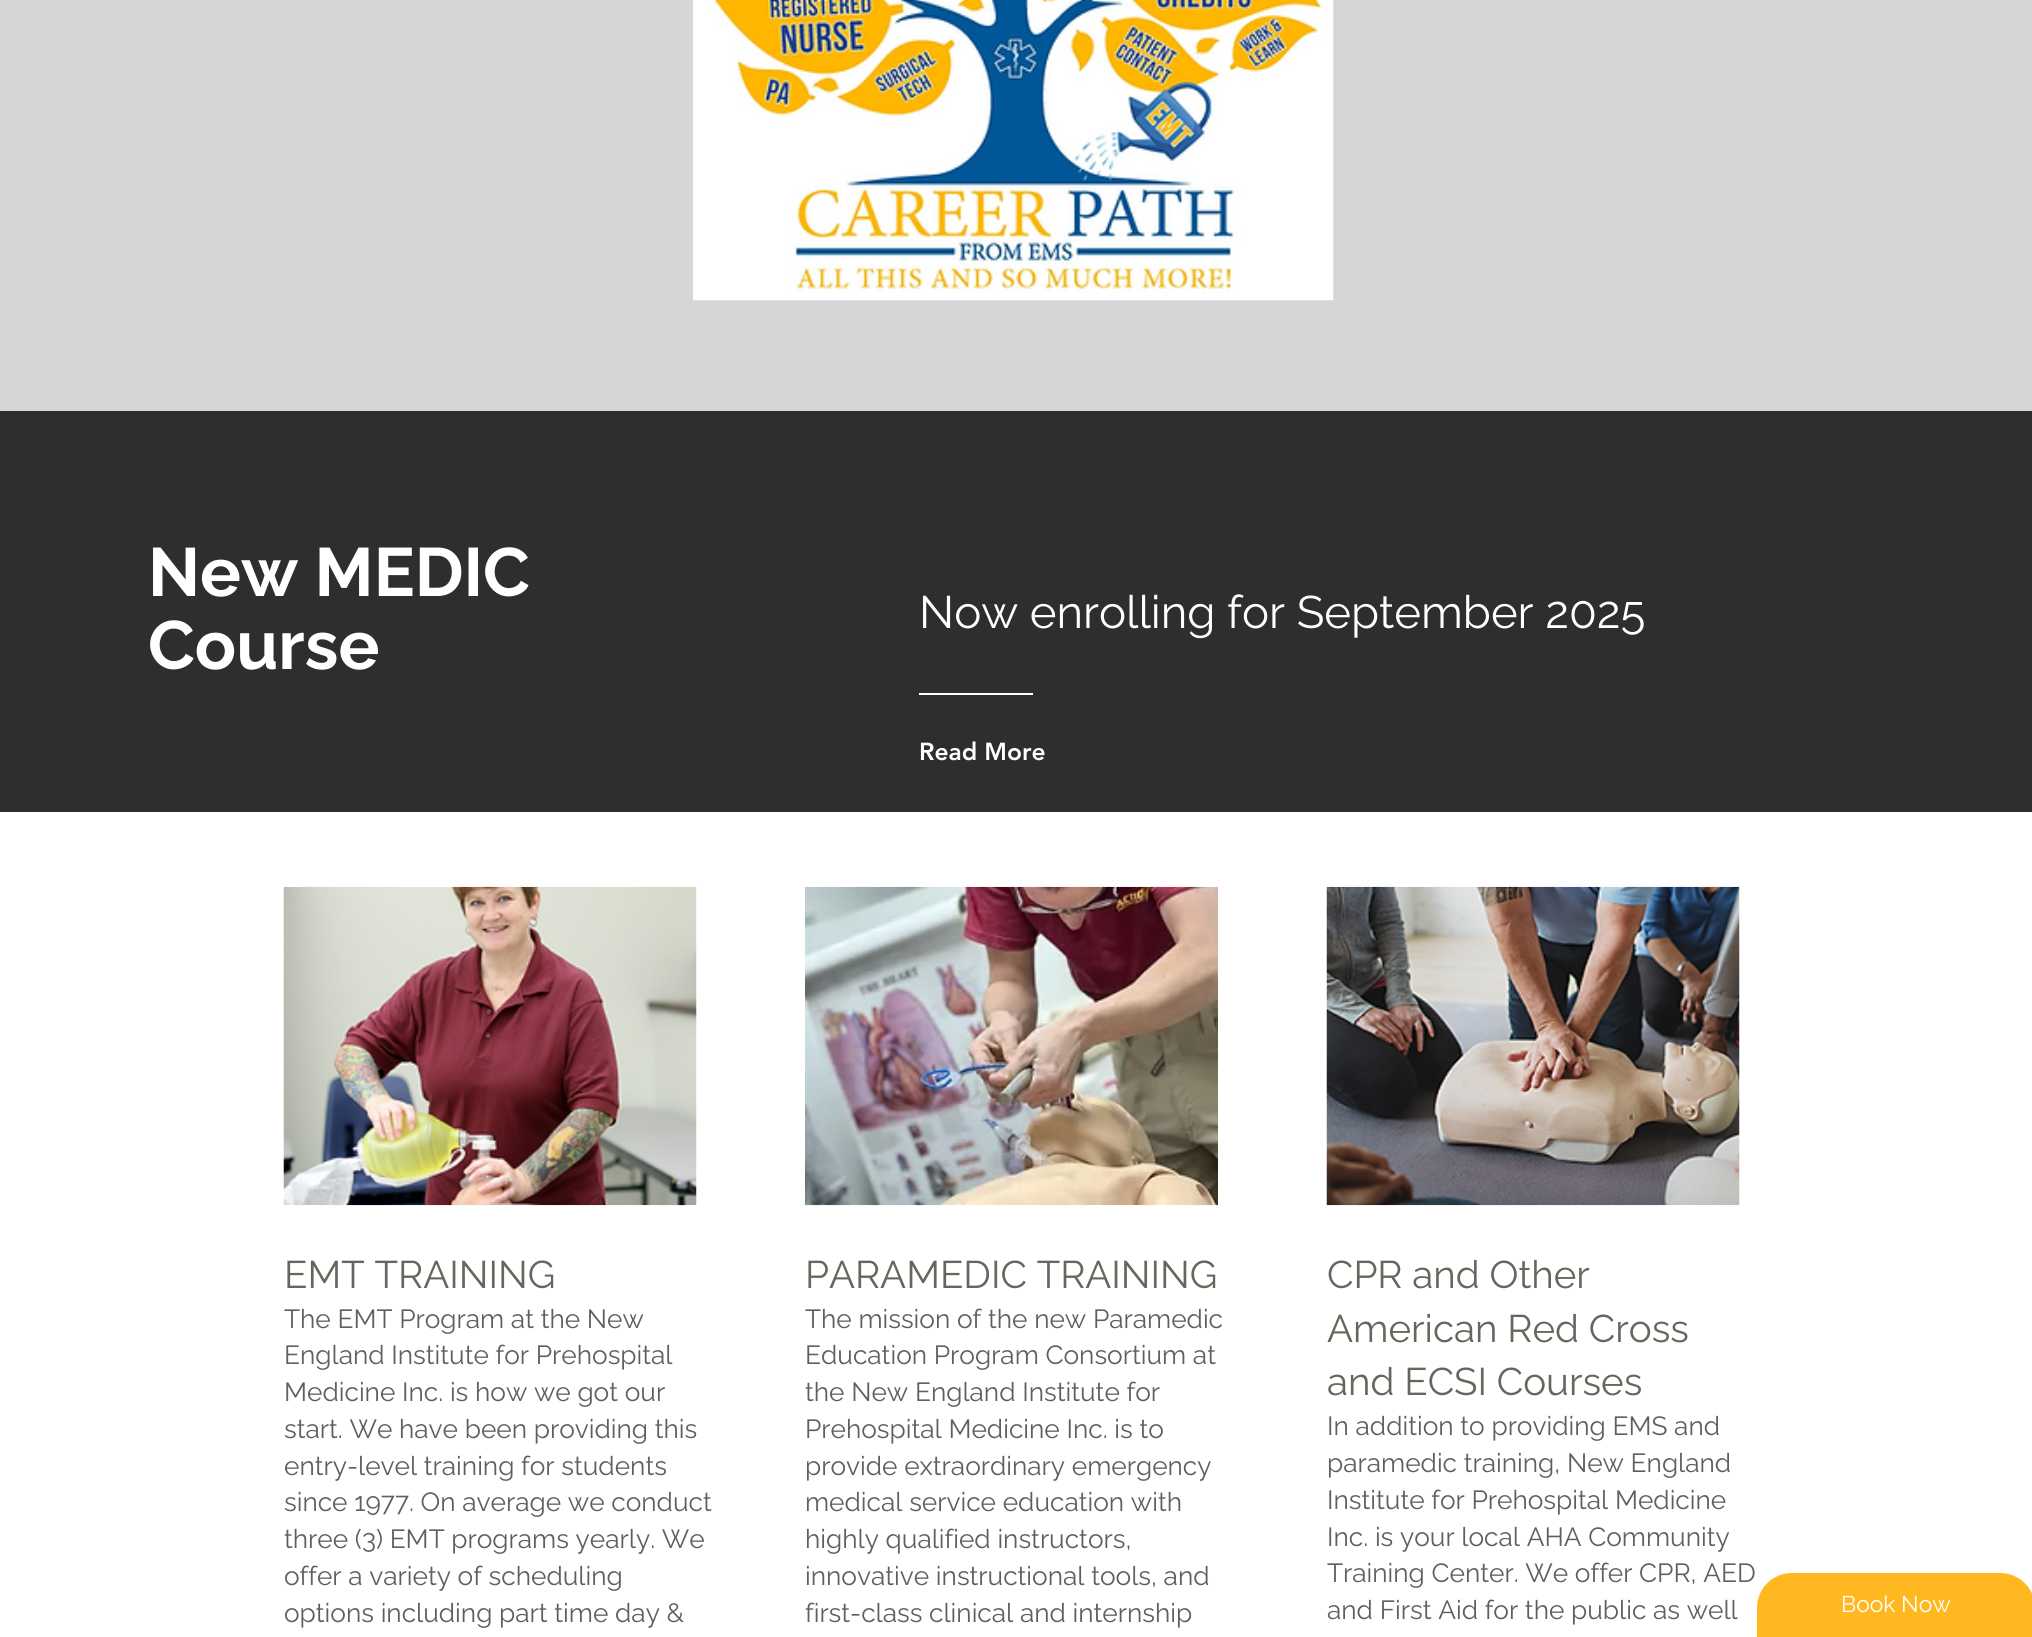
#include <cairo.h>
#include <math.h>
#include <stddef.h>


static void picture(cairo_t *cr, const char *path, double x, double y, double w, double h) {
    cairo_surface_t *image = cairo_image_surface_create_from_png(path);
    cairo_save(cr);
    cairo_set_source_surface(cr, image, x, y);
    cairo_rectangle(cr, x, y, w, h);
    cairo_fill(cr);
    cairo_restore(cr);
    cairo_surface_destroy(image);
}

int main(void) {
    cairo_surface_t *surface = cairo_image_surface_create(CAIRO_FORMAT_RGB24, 2032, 1637);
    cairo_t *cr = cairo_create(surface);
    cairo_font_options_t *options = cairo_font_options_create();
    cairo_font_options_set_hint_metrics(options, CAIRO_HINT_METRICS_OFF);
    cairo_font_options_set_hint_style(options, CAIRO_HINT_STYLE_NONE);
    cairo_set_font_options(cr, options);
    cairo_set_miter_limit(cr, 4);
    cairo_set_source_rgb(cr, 1, 1, 1);
    cairo_paint(cr);
    cairo_set_source_rgb(cr, 0.839, 0.839, 0.839);
    cairo_rectangle(cr, 0, 0, 2032, 411);
    cairo_fill(cr);
    picture(cr, "img1.png", 693, 0, 641, 301);
    cairo_set_source_rgb(cr, 0.184, 0.18, 0.18);
    cairo_rectangle(cr, 0, 411, 2032, 401);
    cairo_fill(cr);
    cairo_select_font_face(cr, "Raleway", CAIRO_FONT_SLANT_NORMAL, CAIRO_FONT_WEIGHT_BOLD);
    cairo_set_font_size(cr, 68.25);
    cairo_set_source_rgb(cr, 1, 1, 1);
    cairo_move_to(cr, 148, 596);
    cairo_show_text(cr, "New MEDIC");
    cairo_move_to(cr, 148, 669);
    cairo_show_text(cr, "Course");
    cairo_select_font_face(cr, "Raleway", CAIRO_FONT_SLANT_NORMAL, CAIRO_FONT_WEIGHT_NORMAL);
    cairo_set_font_size(cr, 45.5);
    cairo_move_to(cr, 919, 628);
    cairo_show_text(cr, "Now enrolling for September 2025");
    cairo_rectangle(cr, 919, 693, 114, 2);
    cairo_fill(cr);
    cairo_select_font_face(cr, "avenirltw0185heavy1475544 Black", CAIRO_FONT_SLANT_NORMAL, CAIRO_FONT_WEIGHT_NORMAL);
    cairo_set_font_size(cr, 24.5);
    cairo_move_to(cr, 919, 760);
    cairo_show_text(cr, "Read More");
    picture(cr, "img2.png", 283, 886, 414, 320);
    picture(cr, "img3.png", 805, 886, 413, 320);
    picture(cr, "img4.png", 1326, 886, 414, 320);
    cairo_select_font_face(cr, "Raleway", CAIRO_FONT_SLANT_NORMAL, CAIRO_FONT_WEIGHT_NORMAL);
    cairo_set_font_size(cr, 38.5);
    cairo_set_source_rgb(cr, 0.408, 0.4, 0.361);
    cairo_move_to(cr, 284, 1288);
    cairo_show_text(cr, "EMT TRAINING");
    cairo_set_font_size(cr, 26.25);
    cairo_set_source_rgb(cr, 0.376, 0.369, 0.369);
    cairo_move_to(cr, 284, 1328);
    cairo_show_text(cr, "The EMT Program at the New");
    cairo_move_to(cr, 284, 1364);
    cairo_show_text(cr, "England Institute for Prehospital");
    cairo_move_to(cr, 284, 1401);
    cairo_show_text(cr, "Medicine Inc. is how we got our");
    cairo_move_to(cr, 284, 1438);
    cairo_show_text(cr, "start. We have been providing this");
    cairo_move_to(cr, 284, 1475);
    cairo_show_text(cr, "entry-level training for students");
    cairo_move_to(cr, 284, 1511);
    cairo_show_text(cr, "since 1977. On average we conduct");
    cairo_move_to(cr, 284, 1548);
    cairo_show_text(cr, "three (3) EMT programs yearly. We");
    cairo_move_to(cr, 284, 1585);
    cairo_show_text(cr, "offer a variety of scheduling");
    cairo_move_to(cr, 284, 1622);
    cairo_show_text(cr, "options including part time day &");
    cairo_set_font_size(cr, 38.5);
    cairo_set_source_rgb(cr, 0.408, 0.4, 0.361);
    cairo_move_to(cr, 805, 1288);
    cairo_show_text(cr, "PARAMEDIC TRAINING");
    cairo_set_font_size(cr, 26.25);
    cairo_set_source_rgb(cr, 0.376, 0.369, 0.369);
    cairo_move_to(cr, 805, 1328);
    cairo_show_text(cr, "The mission of the new Paramedic");
    cairo_move_to(cr, 805, 1364);
    cairo_show_text(cr, "Education Program Consortium at");
    cairo_move_to(cr, 805, 1401);
    cairo_show_text(cr, "the New England Institute for");
    cairo_move_to(cr, 805, 1438);
    cairo_show_text(cr, "Prehospital Medicine Inc. is to");
    cairo_move_to(cr, 805, 1475);
    cairo_show_text(cr, "provide extraordinary emergency");
    cairo_move_to(cr, 805, 1511);
    cairo_show_text(cr, "medical service education with");
    cairo_move_to(cr, 805, 1548);
    cairo_show_text(cr, "highly qualified instructors,");
    cairo_move_to(cr, 805, 1585);
    cairo_show_text(cr, "innovative instructional tools, and");
    cairo_move_to(cr, 805, 1622);
    cairo_show_text(cr, "first-class clinical and internship");
    cairo_set_font_size(cr, 38.5);
    cairo_set_source_rgb(cr, 0.408, 0.4, 0.361);
    cairo_move_to(cr, 1327, 1288);
    cairo_show_text(cr, "CPR and Other");
    cairo_move_to(cr, 1327, 1342);
    cairo_show_text(cr, "American Red Cross");
    cairo_move_to(cr, 1327, 1395);
    cairo_show_text(cr, "and ECSI Courses");
    cairo_set_font_size(cr, 26.25);
    cairo_set_source_rgb(cr, 0.376, 0.369, 0.369);
    cairo_move_to(cr, 1327, 1435);
    cairo_show_text(cr, "In addition to providing EMS and");
    cairo_move_to(cr, 1327, 1472);
    cairo_show_text(cr, "paramedic training, New England");
    cairo_move_to(cr, 1327, 1509);
    cairo_show_text(cr, "Institute for Prehospital Medicine");
    cairo_move_to(cr, 1327, 1546);
    cairo_show_text(cr, "Inc. is your local AHA Community");
    cairo_move_to(cr, 1327, 1582);
    cairo_show_text(cr, "Training Center. We offer CPR, AED");
    cairo_move_to(cr, 1327, 1619);
    cairo_show_text(cr, "and First Aid for the public as well");
    cairo_set_source_rgb(cr, 1, 0.722, 0.122);
    cairo_new_path(cr);
    cairo_move_to(cr, 1792, 1573);
    cairo_line_to(cr, 2000, 1573);
    cairo_curve_to(cr, 2019.5, 1573, 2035, 1588.5, 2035, 1608);
    cairo_line_to(cr, 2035, 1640);
    cairo_line_to(cr, 1757, 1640);
    cairo_line_to(cr, 1757, 1608);
    cairo_curve_to(cr, 1757, 1588.5, 1772.5, 1573, 1792, 1573);
    cairo_close_path(cr);
    cairo_fill(cr);
    cairo_set_font_size(cr, 22.75);
    cairo_set_source_rgb(cr, 1, 1, 1);
    cairo_move_to(cr, 1841, 1612);
    cairo_show_text(cr, "Book Now");
    cairo_surface_write_to_png(surface, "page.png");
    cairo_font_options_destroy(options);
    cairo_destroy(cr);
    cairo_surface_destroy(surface);
    return 0;
}
